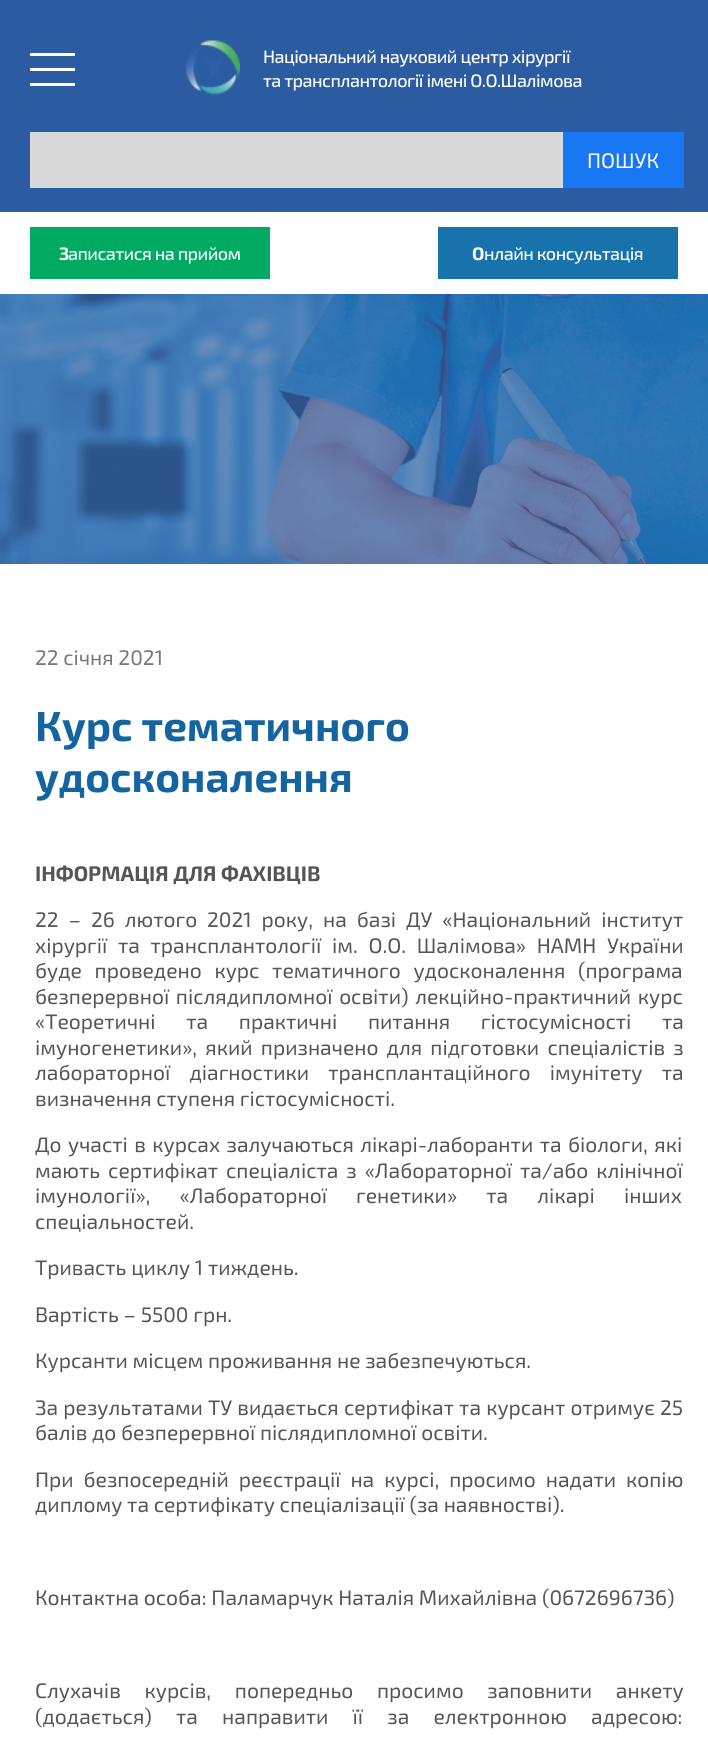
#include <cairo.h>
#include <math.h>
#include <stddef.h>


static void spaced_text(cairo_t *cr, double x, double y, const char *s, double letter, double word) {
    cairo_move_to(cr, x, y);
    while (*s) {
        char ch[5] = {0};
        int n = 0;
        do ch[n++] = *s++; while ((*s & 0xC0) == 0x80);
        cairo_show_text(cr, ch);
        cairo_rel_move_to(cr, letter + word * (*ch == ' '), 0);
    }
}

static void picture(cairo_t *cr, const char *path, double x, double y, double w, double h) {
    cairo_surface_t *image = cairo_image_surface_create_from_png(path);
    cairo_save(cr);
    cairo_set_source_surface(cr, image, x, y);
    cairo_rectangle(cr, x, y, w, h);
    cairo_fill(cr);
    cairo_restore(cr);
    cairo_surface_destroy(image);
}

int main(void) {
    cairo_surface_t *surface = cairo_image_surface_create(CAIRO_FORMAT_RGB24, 708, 1741);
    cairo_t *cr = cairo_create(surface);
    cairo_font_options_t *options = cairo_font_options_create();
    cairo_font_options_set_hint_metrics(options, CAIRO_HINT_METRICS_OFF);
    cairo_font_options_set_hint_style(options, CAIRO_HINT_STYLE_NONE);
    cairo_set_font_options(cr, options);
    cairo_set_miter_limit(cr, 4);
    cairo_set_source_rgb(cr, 1, 1, 1);
    cairo_paint(cr);
    cairo_set_source_rgb(cr, 0.169, 0.361, 0.631);
    cairo_rectangle(cr, 0, 0, 708, 212);
    cairo_fill(cr);
    cairo_set_source_rgb(cr, 1, 1, 1);
    cairo_rectangle(cr, 30, 53, 45, 3);
    cairo_fill(cr);
    cairo_rectangle(cr, 30, 68, 45, 3);
    cairo_fill(cr);
    cairo_rectangle(cr, 30, 83, 45, 3);
    cairo_fill(cr);
    picture(cr, "img1.png", 186, 40, 54, 55);
    cairo_select_font_face(cr, "Exo 2 Medium", CAIRO_FONT_SLANT_NORMAL, CAIRO_FONT_WEIGHT_NORMAL);
    cairo_set_font_size(cr, 18);
    spaced_text(cr, 263, 63, "Національний науковий центр хірургії", -0.55, 0);
    spaced_text(cr, 263, 87, "та трансплантології імені О.О.Шалімова", -0.55, 0);
    cairo_set_source_rgb(cr, 0.851, 0.851, 0.851);
    cairo_rectangle(cr, 30, 132, 533, 56);
    cairo_fill(cr);
    cairo_set_source_rgb(cr, 0.094, 0.467, 0.949);
    cairo_rectangle(cr, 563, 132, 121, 56);
    cairo_fill(cr);
    cairo_select_font_face(cr, "Exo 2", CAIRO_FONT_SLANT_NORMAL, CAIRO_FONT_WEIGHT_NORMAL);
    cairo_set_font_size(cr, 21);
    cairo_set_source_rgb(cr, 1, 1, 1);
    cairo_move_to(cr, 587, 168);
    cairo_show_text(cr, "ПОШУК");
    cairo_set_source_rgb(cr, 0, 0.667, 0.38);
    cairo_rectangle(cr, 30, 227, 240, 52);
    cairo_fill(cr);
    cairo_select_font_face(cr, "Exo 2", CAIRO_FONT_SLANT_NORMAL, CAIRO_FONT_WEIGHT_BOLD);
    cairo_set_font_size(cr, 18);
    cairo_set_source_rgb(cr, 1, 1, 1);
    spaced_text(cr, 59, 260, "З", -0.55, 0);
    cairo_select_font_face(cr, "Exo 2 Medium", CAIRO_FONT_SLANT_NORMAL, CAIRO_FONT_WEIGHT_NORMAL);
    spaced_text(cr, 68, 260, "аписатися на прийом", -0.55, 0);
    cairo_set_source_rgb(cr, 0.094, 0.447, 0.671);
    cairo_rectangle(cr, 438, 227, 240, 52);
    cairo_fill(cr);
    cairo_select_font_face(cr, "Exo 2", CAIRO_FONT_SLANT_NORMAL, CAIRO_FONT_WEIGHT_BOLD);
    cairo_set_source_rgb(cr, 1, 1, 1);
    spaced_text(cr, 472, 260, "О", -0.55, 0);
    cairo_select_font_face(cr, "Exo 2 Medium", CAIRO_FONT_SLANT_NORMAL, CAIRO_FONT_WEIGHT_NORMAL);
    spaced_text(cr, 484, 260, "нлайн консультація", -0.55, 0);
    picture(cr, "img2.png", 0, 294, 708, 270);
    cairo_select_font_face(cr, "Exo 2", CAIRO_FONT_SLANT_NORMAL, CAIRO_FONT_WEIGHT_NORMAL);
    cairo_set_font_size(cr, 21);
    cairo_set_source_rgb(cr, 0.467, 0.467, 0.467);
    cairo_move_to(cr, 35, 665);
    cairo_show_text(cr, "22 січня 2021");
    cairo_select_font_face(cr, "Exo 2", CAIRO_FONT_SLANT_NORMAL, CAIRO_FONT_WEIGHT_BOLD);
    cairo_set_font_size(cr, 42);
    cairo_set_source_rgb(cr, 0.082, 0.392, 0.624);
    cairo_move_to(cr, 35, 741);
    cairo_show_text(cr, "Курс тематичного");
    cairo_move_to(cr, 35, 792);
    cairo_show_text(cr, "удосконалення");
    cairo_set_font_size(cr, 21);
    cairo_set_source_rgb(cr, 0.333, 0.333, 0.333);
    cairo_move_to(cr, 35, 881);
    cairo_show_text(cr, "ІНФОРМАЦІЯ ДЛЯ ФАХІВЦІВ");
    cairo_select_font_face(cr, "Exo 2", CAIRO_FONT_SLANT_NORMAL, CAIRO_FONT_WEIGHT_NORMAL);
    spaced_text(cr, 35, 927, "22 – 26 лютого 2021 року, на базі ДУ «Національний інститут", 0, 5.25);
    spaced_text(cr, 35, 953, "хірургії та трансплантології ім. О.О. Шалімова» НАМН України", 0, 6);
    spaced_text(cr, 35, 978, "буде проведено курс тематичного удосконалення (програма", 0, 8);
    spaced_text(cr, 35, 1004, "безперервної післядипломної освіти) лекційно-практичний курс", 0, 2);
    spaced_text(cr, 35, 1029, "«Теоретичні та практичні питання гістосумісності та", 0, 26);
    spaced_text(cr, 35, 1055, "імуногенетики», який призначено для підготовки спеціалістів з", 0, 3.5);
    spaced_text(cr, 35, 1080, "лабораторної діагностики трансплантаційного імунітету та", 0, 14.5);
    cairo_move_to(cr, 35, 1106);
    cairo_show_text(cr, "визначення ступеня гістосумісності.");
    spaced_text(cr, 35, 1152, "До участі в курсах залучаються лікарі-лаборанти та біологи, які", 0, 1.75);
    spaced_text(cr, 35, 1178, "мають сертифікат спеціаліста з «Лабораторної та/або клінічної", 0, 3.25);
    spaced_text(cr, 35, 1203, "імунології», «Лабораторної генетики» та лікарі інших", 0, 24.5);
    cairo_move_to(cr, 35, 1229);
    cairo_show_text(cr, "спеціальностей.");
    cairo_move_to(cr, 35, 1275);
    cairo_show_text(cr, "Тривасть циклу 1 тиждень.");
    cairo_move_to(cr, 35, 1322);
    cairo_show_text(cr, "Вартість – 5500 грн.");
    cairo_move_to(cr, 35, 1368);
    cairo_show_text(cr, "Курсанти місцем проживання не забезпечуються.");
    spaced_text(cr, 35, 1415, "За результатами ТУ видається сертифікат та курсант отримує 25", 0, 0.5);
    cairo_move_to(cr, 35, 1440);
    cairo_show_text(cr, "балів до безперервної післядипломної освіти.");
    spaced_text(cr, 35, 1487, "При безпосередній реєстрації на курсі, просимо надати копію", 0, 5.25);
    cairo_move_to(cr, 35, 1512);
    cairo_show_text(cr, "диплому та сертифікату спеціалізації (за наявностві).");
    cairo_move_to(cr, 35, 1605);
    cairo_show_text(cr, "Контактна особа: Паламарчук Наталія Михайлівна (0672696736)");
    spaced_text(cr, 35, 1698, "Слухачів курсів, попередньо просимо заповнити анкету", 0, 19);
    spaced_text(cr, 35, 1724, "(додається) та направити її за електронною адресою:", 0, 19.5);
    cairo_surface_write_to_png(surface, "page.png");
    cairo_font_options_destroy(options);
    cairo_destroy(cr);
    cairo_surface_destroy(surface);
    return 0;
}
